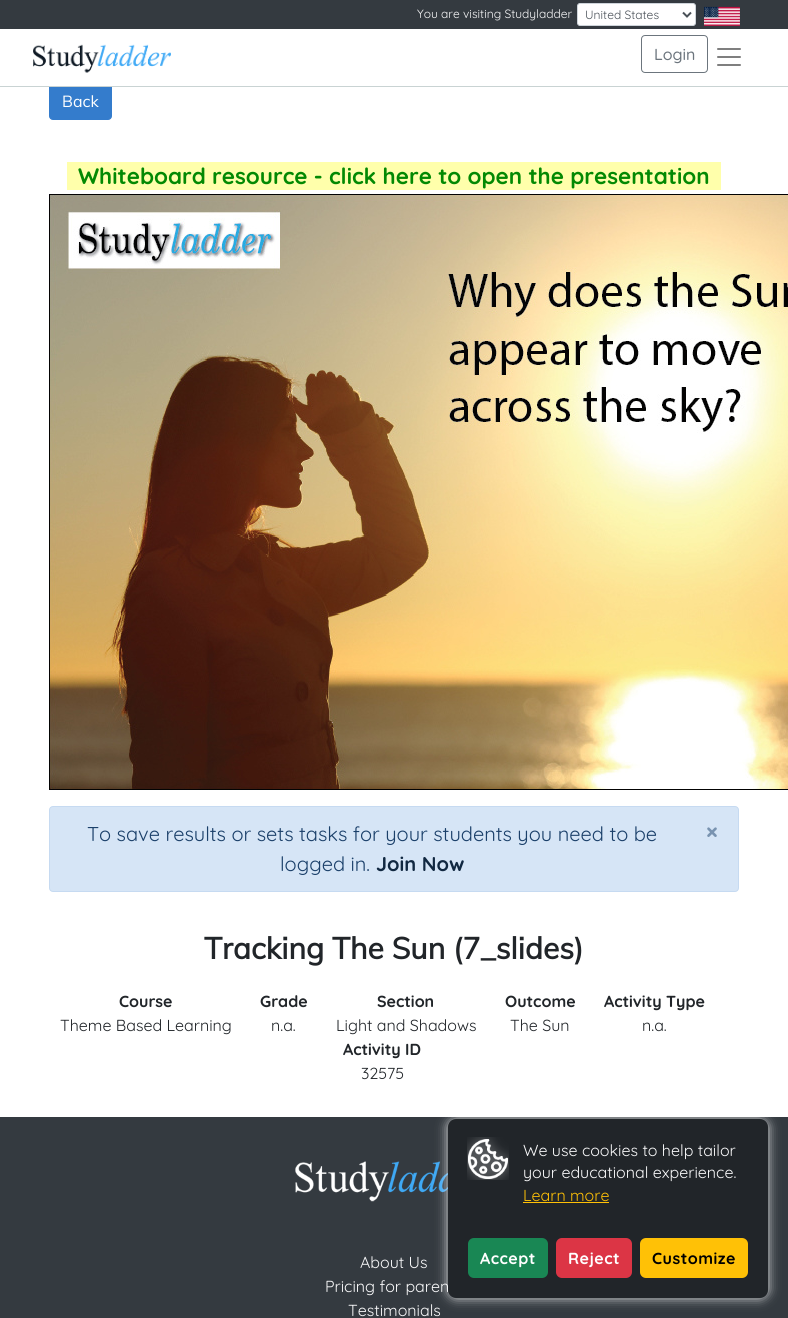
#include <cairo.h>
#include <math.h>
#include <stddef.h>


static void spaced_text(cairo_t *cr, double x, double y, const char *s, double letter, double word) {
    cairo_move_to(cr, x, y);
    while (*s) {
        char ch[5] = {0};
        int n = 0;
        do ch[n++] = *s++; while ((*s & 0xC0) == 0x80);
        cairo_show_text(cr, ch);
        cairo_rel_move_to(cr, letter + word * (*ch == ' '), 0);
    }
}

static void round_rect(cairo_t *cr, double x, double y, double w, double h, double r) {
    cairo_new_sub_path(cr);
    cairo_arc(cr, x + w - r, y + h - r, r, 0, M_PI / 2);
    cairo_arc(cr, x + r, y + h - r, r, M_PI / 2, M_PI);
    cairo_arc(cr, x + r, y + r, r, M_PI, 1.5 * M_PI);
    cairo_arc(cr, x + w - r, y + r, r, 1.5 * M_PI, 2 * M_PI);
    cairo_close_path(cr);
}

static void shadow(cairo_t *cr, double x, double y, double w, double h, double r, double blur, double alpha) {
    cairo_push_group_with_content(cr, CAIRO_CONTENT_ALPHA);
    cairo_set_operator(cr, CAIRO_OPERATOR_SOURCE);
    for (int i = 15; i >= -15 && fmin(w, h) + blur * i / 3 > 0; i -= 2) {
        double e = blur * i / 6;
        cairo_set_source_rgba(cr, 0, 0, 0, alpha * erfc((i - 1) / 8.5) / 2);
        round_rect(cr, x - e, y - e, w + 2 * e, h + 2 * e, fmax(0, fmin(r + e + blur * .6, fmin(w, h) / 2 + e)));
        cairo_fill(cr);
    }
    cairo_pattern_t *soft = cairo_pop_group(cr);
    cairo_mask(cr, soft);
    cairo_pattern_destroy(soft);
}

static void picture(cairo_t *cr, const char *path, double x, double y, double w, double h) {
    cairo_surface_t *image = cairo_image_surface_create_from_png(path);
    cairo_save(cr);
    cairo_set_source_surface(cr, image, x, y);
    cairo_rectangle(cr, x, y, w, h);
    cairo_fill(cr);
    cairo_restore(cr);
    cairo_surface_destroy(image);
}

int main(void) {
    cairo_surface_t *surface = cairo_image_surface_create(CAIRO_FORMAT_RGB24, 788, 1318);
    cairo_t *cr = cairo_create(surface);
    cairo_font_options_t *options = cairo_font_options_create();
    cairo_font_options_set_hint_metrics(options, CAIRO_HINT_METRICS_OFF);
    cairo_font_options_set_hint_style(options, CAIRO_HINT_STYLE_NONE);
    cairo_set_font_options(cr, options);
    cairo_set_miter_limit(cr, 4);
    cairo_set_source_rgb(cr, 1, 1, 1);
    cairo_paint(cr);
    cairo_set_source_rgb(cr, 0.204, 0.486, 0.8);
    round_rect(cr, 49.5, 82.5, 62, 37, 3.5);
    cairo_fill_preserve(cr);
    cairo_set_line_width(cr, 1);
    cairo_stroke(cr);
    cairo_set_source_rgb(cr, 1, 1, 1);
    cairo_rectangle(cr, 49, 82, 63, 4);
    cairo_fill(cr);
    cairo_set_source_rgb(cr, 0.788, 0.827, 0.827);
    cairo_rectangle(cr, 0, 86, 788, 1);
    cairo_fill(cr);
    cairo_set_source_rgb(cr, 0.204, 0.227, 0.251);
    cairo_rectangle(cr, 0, 0, 788, 29);
    cairo_fill(cr);
    cairo_select_font_face(cr, "Quicksand", CAIRO_FONT_SLANT_NORMAL, CAIRO_FONT_WEIGHT_NORMAL);
    cairo_set_font_size(cr, 12);
    cairo_set_source_rgb(cr, 0.973, 0.976, 0.98);
    cairo_move_to(cr, 417, 18);
    cairo_show_text(cr, "You are visiting Studyladder");
    cairo_set_source_rgb(cr, 1, 1, 1);
    round_rect(cr, 577.5, 3.5, 118, 22, 2.5);
    cairo_fill_preserve(cr);
    cairo_set_source_rgb(cr, 0.808, 0.831, 0.855);
    cairo_stroke(cr);
    cairo_new_path(cr);
    cairo_move_to(cr, 683, 12.5);
    cairo_line_to(cr, 687, 16.5);
    cairo_line_to(cr, 691, 12.5);
    cairo_set_source_rgb(cr, 0.286, 0.314, 0.341);
    cairo_set_line_width(cr, 2);
    cairo_stroke(cr);
    cairo_move_to(cr, 585, 19);
    cairo_show_text(cr, "United States");
    picture(cr, "img1.png", 704, 6, 36, 20);
    picture(cr, "img2.png", 33, 44, 138, 29);
    round_rect(cr, 641.5, 35.5, 66, 37, 3.5);
    cairo_set_source_rgb(cr, 0.424, 0.459, 0.49);
    cairo_set_line_width(cr, 1);
    cairo_stroke(cr);
    cairo_select_font_face(cr, "Quicksand Medium", CAIRO_FONT_SLANT_NORMAL, CAIRO_FONT_WEIGHT_NORMAL);
    cairo_set_font_size(cr, 16);
    cairo_move_to(cr, 654, 60);
    cairo_show_text(cr, "Login");
    picture(cr, "img3.png", 717, 48, 24, 18);
    cairo_select_font_face(cr, "Muli", CAIRO_FONT_SLANT_NORMAL, CAIRO_FONT_WEIGHT_NORMAL);
    cairo_set_source_rgb(cr, 1, 1, 1);
    cairo_move_to(cr, 62, 107);
    cairo_show_text(cr, "Back");
    cairo_set_source_rgb(cr, 1, 1, 0.671);
    cairo_rectangle(cr, 67, 162, 654, 28);
    cairo_fill(cr);
    cairo_select_font_face(cr, "Quicksand", CAIRO_FONT_SLANT_NORMAL, CAIRO_FONT_WEIGHT_BOLD);
    cairo_set_font_size(cr, 22.4);
    cairo_set_source_rgb(cr, 0.012, 0.537, 0.012);
    cairo_move_to(cr, 78, 184);
    cairo_show_text(cr, "Whiteboard resource - click here to open the presentation");
    picture(cr, "img4.png", 49, 194, 739, 596);
    cairo_set_source_rgb(cr, 0.839, 0.898, 0.961);
    round_rect(cr, 49.5, 806.5, 689, 85, 3.5);
    cairo_fill_preserve(cr);
    cairo_set_source_rgb(cr, 0.776, 0.855, 0.945);
    cairo_stroke(cr);
    cairo_select_font_face(cr, "Quicksand", CAIRO_FONT_SLANT_NORMAL, CAIRO_FONT_WEIGHT_NORMAL);
    cairo_set_font_size(cr, 20);
    cairo_set_source_rgb(cr, 0.106, 0.251, 0.416);
    cairo_move_to(cr, 87, 841);
    cairo_show_text(cr, "To save results or sets tasks for your students you need to be");
    cairo_move_to(cr, 280, 871);
    cairo_show_text(cr, "logged in.");
    cairo_select_font_face(cr, "Quicksand", CAIRO_FONT_SLANT_NORMAL, CAIRO_FONT_WEIGHT_BOLD);
    cairo_set_source_rgb(cr, 0.067, 0.157, 0.255);
    cairo_move_to(cr, 376, 871);
    cairo_show_text(cr, "Join Now");
    cairo_set_font_size(cr, 24);
    cairo_set_source_rgb(cr, 0.475, 0.576, 0.69);
    cairo_move_to(cr, 706, 840);
    cairo_show_text(cr, "×");
    cairo_select_font_face(cr, "Muli", CAIRO_FONT_SLANT_NORMAL, CAIRO_FONT_WEIGHT_BOLD);
    cairo_set_font_size(cr, 30);
    cairo_set_source_rgb(cr, 0.129, 0.145, 0.161);
    cairo_move_to(cr, 204, 959);
    cairo_show_text(cr, "Tracking The Sun (7_slides)");
    cairo_select_font_face(cr, "Quicksand", CAIRO_FONT_SLANT_NORMAL, CAIRO_FONT_WEIGHT_BOLD);
    cairo_set_font_size(cr, 16);
    cairo_move_to(cr, 119, 1007);
    cairo_show_text(cr, "Course");
    cairo_select_font_face(cr, "Quicksand", CAIRO_FONT_SLANT_NORMAL, CAIRO_FONT_WEIGHT_NORMAL);
    cairo_move_to(cr, 60, 1031);
    cairo_show_text(cr, "Theme Based Learning");
    cairo_select_font_face(cr, "Quicksand", CAIRO_FONT_SLANT_NORMAL, CAIRO_FONT_WEIGHT_BOLD);
    cairo_move_to(cr, 260, 1007);
    cairo_show_text(cr, "Grade");
    cairo_select_font_face(cr, "Quicksand", CAIRO_FONT_SLANT_NORMAL, CAIRO_FONT_WEIGHT_NORMAL);
    cairo_move_to(cr, 271, 1031);
    cairo_show_text(cr, "n.a.");
    cairo_select_font_face(cr, "Quicksand", CAIRO_FONT_SLANT_NORMAL, CAIRO_FONT_WEIGHT_BOLD);
    cairo_move_to(cr, 377, 1007);
    cairo_show_text(cr, "Section");
    cairo_select_font_face(cr, "Quicksand", CAIRO_FONT_SLANT_NORMAL, CAIRO_FONT_WEIGHT_NORMAL);
    cairo_move_to(cr, 336, 1031);
    cairo_show_text(cr, "Light and Shadows");
    cairo_select_font_face(cr, "Quicksand", CAIRO_FONT_SLANT_NORMAL, CAIRO_FONT_WEIGHT_BOLD);
    cairo_move_to(cr, 505, 1007);
    cairo_show_text(cr, "Outcome");
    cairo_select_font_face(cr, "Quicksand", CAIRO_FONT_SLANT_NORMAL, CAIRO_FONT_WEIGHT_NORMAL);
    cairo_move_to(cr, 510, 1031);
    cairo_show_text(cr, "The Sun");
    cairo_select_font_face(cr, "Quicksand", CAIRO_FONT_SLANT_NORMAL, CAIRO_FONT_WEIGHT_BOLD);
    cairo_move_to(cr, 604, 1007);
    cairo_show_text(cr, "Activity Type");
    cairo_select_font_face(cr, "Quicksand", CAIRO_FONT_SLANT_NORMAL, CAIRO_FONT_WEIGHT_NORMAL);
    cairo_move_to(cr, 642, 1031);
    cairo_show_text(cr, "n.a.");
    cairo_select_font_face(cr, "Quicksand", CAIRO_FONT_SLANT_NORMAL, CAIRO_FONT_WEIGHT_BOLD);
    cairo_move_to(cr, 343, 1055);
    cairo_show_text(cr, "Activity ID");
    cairo_select_font_face(cr, "Quicksand", CAIRO_FONT_SLANT_NORMAL, CAIRO_FONT_WEIGHT_NORMAL);
    cairo_move_to(cr, 361, 1079);
    cairo_show_text(cr, "32575");
    cairo_set_source_rgb(cr, 0.204, 0.227, 0.251);
    cairo_rectangle(cr, 0, 1117, 788, 201);
    cairo_fill(cr);
    picture(cr, "img6.png", 295, 1161, 153, 41);
    cairo_set_source_rgb(cr, 1, 1, 1);
    shadow(cr, 449, 1120, 318, 177, 7, 6, 1);
    cairo_set_source_rgb(cr, 0.973, 0.976, 0.98);
    cairo_move_to(cr, 325, 1292);
    cairo_show_text(cr, "Pricing for paren");
    cairo_set_source_rgb(cr, 0.129, 0.145, 0.161);
    round_rect(cr, 448, 1119, 320, 179, 8);
    cairo_fill(cr);
    picture(cr, "img5.png", 467, 1137, 42, 43);
    cairo_set_source_rgb(cr, 0.973, 0.976, 0.98);
    cairo_move_to(cr, 523, 1156);
    cairo_show_text(cr, "We use cookies to help tailor");
    cairo_move_to(cr, 523, 1178);
    cairo_show_text(cr, "your educational experience.");
    cairo_set_source_rgb(cr, 1, 0.757, 0.027);
    cairo_move_to(cr, 523, 1201);
    cairo_show_text(cr, "Learn more");
    cairo_rectangle(cr, 523, 1202, 86, 1);
    cairo_fill(cr);
    cairo_set_source_rgb(cr, 0.098, 0.529, 0.329);
    round_rect(cr, 468, 1238, 80, 40, 6);
    cairo_fill(cr);
    cairo_select_font_face(cr, "Quicksand", CAIRO_FONT_SLANT_NORMAL, CAIRO_FONT_WEIGHT_BOLD);
    cairo_set_source_rgb(cr, 1, 1, 1);
    spaced_text(cr, 480, 1264, "Accept", 0.5, 0);
    cairo_set_source_rgb(cr, 0.863, 0.208, 0.271);
    round_rect(cr, 556, 1238, 76, 40, 6);
    cairo_fill(cr);
    cairo_set_source_rgb(cr, 1, 1, 1);
    spaced_text(cr, 568, 1264, "Reject", 0.5, 0);
    cairo_set_source_rgb(cr, 1, 0.757, 0.027);
    round_rect(cr, 640, 1238, 108, 40, 6);
    cairo_fill(cr);
    cairo_set_source_rgb(cr, 0, 0, 0);
    spaced_text(cr, 652, 1264, "Customize", 0.5, 0);
    cairo_select_font_face(cr, "Quicksand", CAIRO_FONT_SLANT_NORMAL, CAIRO_FONT_WEIGHT_NORMAL);
    cairo_set_source_rgb(cr, 0.973, 0.976, 0.98);
    cairo_move_to(cr, 360, 1268);
    cairo_show_text(cr, "About Us");
    cairo_move_to(cr, 348, 1316);
    cairo_show_text(cr, "Testimonials");
    cairo_surface_write_to_png(surface, "page.png");
    cairo_font_options_destroy(options);
    cairo_destroy(cr);
    cairo_surface_destroy(surface);
    return 0;
}
